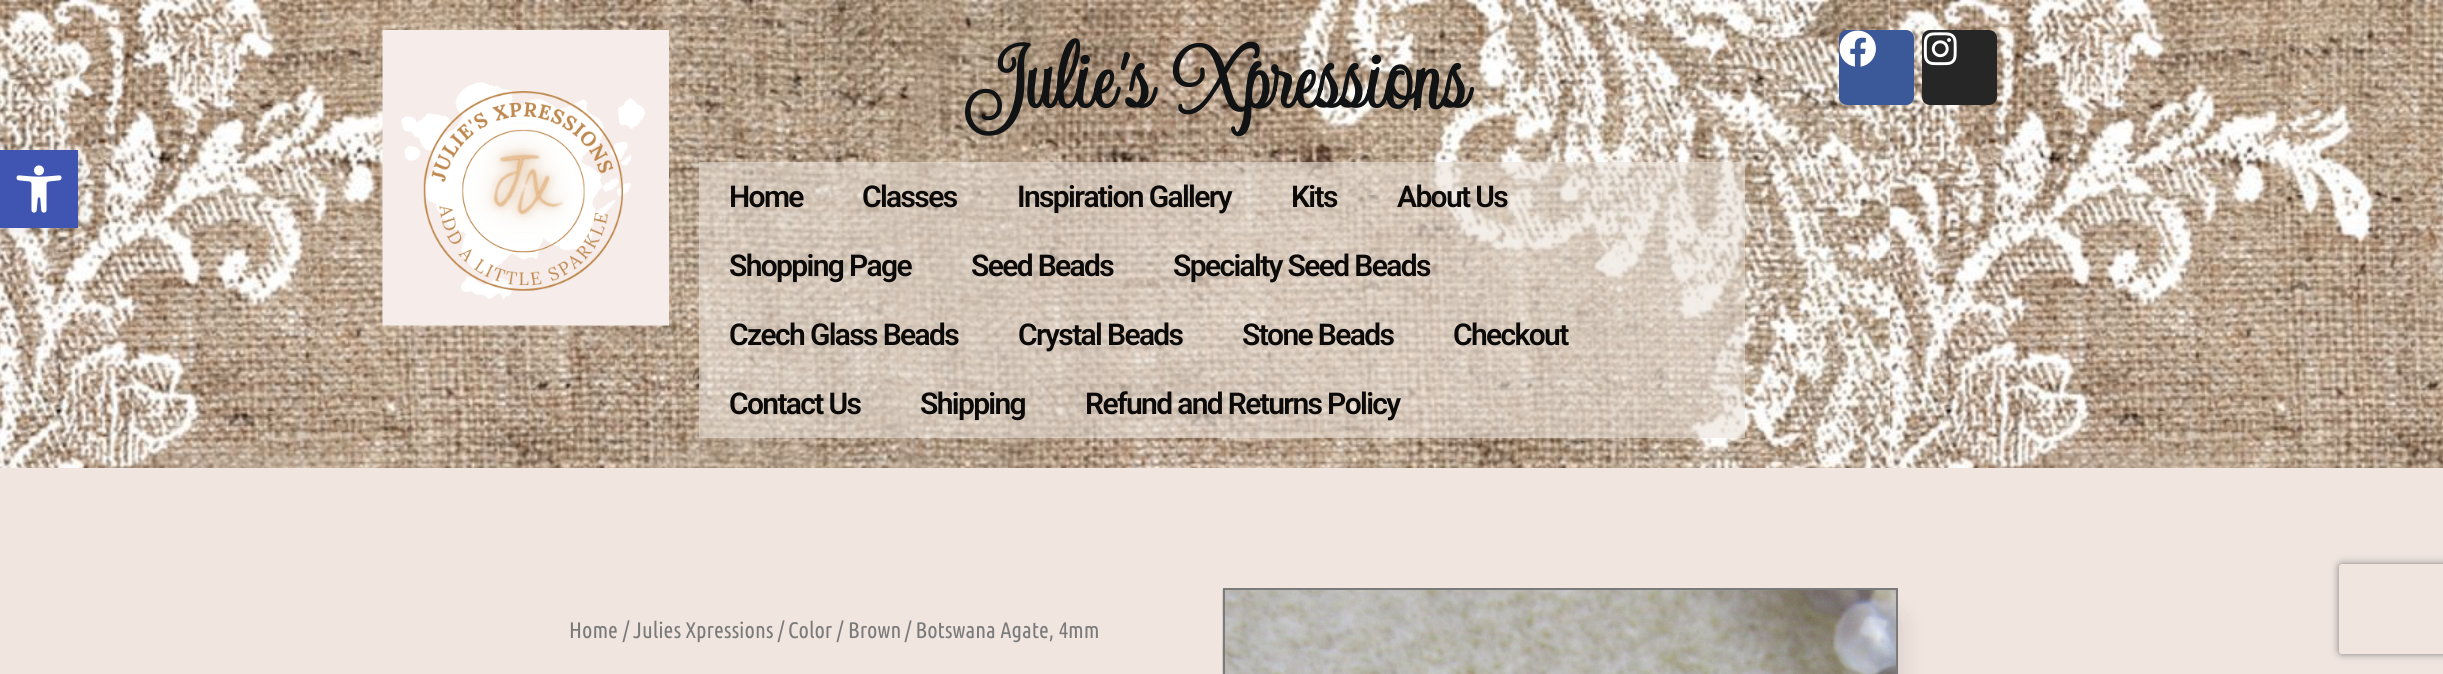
#include <cairo.h>
#include <math.h>
#include <stddef.h>


static void spaced_text(cairo_t *cr, double x, double y, const char *s, double letter, double word) {
    cairo_move_to(cr, x, y);
    while (*s) {
        char ch[5] = {0};
        int n = 0;
        do ch[n++] = *s++; while ((*s & 0xC0) == 0x80);
        cairo_show_text(cr, ch);
        cairo_rel_move_to(cr, letter + word * (*ch == ' '), 0);
    }
}

static void round_rect(cairo_t *cr, double x, double y, double w, double h, double r) {
    cairo_new_sub_path(cr);
    cairo_arc(cr, x + w - r, y + h - r, r, 0, M_PI / 2);
    cairo_arc(cr, x + r, y + h - r, r, M_PI / 2, M_PI);
    cairo_arc(cr, x + r, y + r, r, M_PI, 1.5 * M_PI);
    cairo_arc(cr, x + w - r, y + r, r, 1.5 * M_PI, 2 * M_PI);
    cairo_close_path(cr);
}

static void shadow(cairo_t *cr, double x, double y, double w, double h, double r, double blur, double alpha) {
    cairo_push_group_with_content(cr, CAIRO_CONTENT_ALPHA);
    cairo_set_operator(cr, CAIRO_OPERATOR_SOURCE);
    for (int i = 15; i >= -15 && fmin(w, h) + blur * i / 3 > 0; i -= 2) {
        double e = blur * i / 6;
        cairo_set_source_rgba(cr, 0, 0, 0, alpha * erfc((i - 1) / 8.5) / 2);
        round_rect(cr, x - e, y - e, w + 2 * e, h + 2 * e, fmax(0, fmin(r + e + blur * .6, fmin(w, h) / 2 + e)));
        cairo_fill(cr);
    }
    cairo_pattern_t *soft = cairo_pop_group(cr);
    cairo_mask(cr, soft);
    cairo_pattern_destroy(soft);
}

static void picture(cairo_t *cr, const char *path, double x, double y, double w, double h) {
    cairo_surface_t *image = cairo_image_surface_create_from_png(path);
    cairo_save(cr);
    cairo_set_source_surface(cr, image, x, y);
    cairo_rectangle(cr, x, y, w, h);
    cairo_fill(cr);
    cairo_restore(cr);
    cairo_surface_destroy(image);
}

int main(void) {
    cairo_surface_t *surface = cairo_image_surface_create(CAIRO_FORMAT_RGB24, 2443, 674);
    cairo_t *cr = cairo_create(surface);
    cairo_font_options_t *options = cairo_font_options_create();
    cairo_font_options_set_hint_metrics(options, CAIRO_HINT_METRICS_OFF);
    cairo_font_options_set_hint_style(options, CAIRO_HINT_STYLE_NONE);
    cairo_set_font_options(cr, options);
    cairo_set_miter_limit(cr, 4);
    cairo_set_source_rgb(cr, 0.941, 0.898, 0.875);
    cairo_paint(cr);
    picture(cr, "img2.png", 0, 0, 2443, 468);
    cairo_set_source_rgb(cr, 0, 0, 0);
    shadow(cr, 0, 150, 78, 78, 0, 7.5, 0.1);
    cairo_set_source_rgb(cr, 0.251, 0.329, 0.698);
    cairo_rectangle(cr, 0, 150, 78, 78);
    cairo_fill(cr);
    picture(cr, "img1.png", 16, 165, 46, 48);
    picture(cr, "img3.png", 382, 30, 287, 296);
    cairo_select_font_face(cr, "Updock", CAIRO_FONT_SLANT_NORMAL, CAIRO_FONT_WEIGHT_BOLD);
    cairo_set_font_size(cr, 102);
    cairo_set_source_rgb(cr, 0.063, 0.071, 0.075);
    cairo_move_to(cr, 976, 108);
    cairo_show_text(cr, "Julie's Xpressions");
    cairo_set_source_rgba(cr, 0.925, 0.89, 0.855, 0.59);
    cairo_rectangle(cr, 699, 162, 1046, 276);
    cairo_fill(cr);
    cairo_select_font_face(cr, "Roboto SemiBold", CAIRO_FONT_SLANT_NORMAL, CAIRO_FONT_WEIGHT_NORMAL);
    cairo_set_font_size(cr, 30);
    cairo_set_source_rgb(cr, 0.047, 0.039, 0.039);
    spaced_text(cr, 729, 207, "Home", -1.65, 0);
    spaced_text(cr, 862, 207, "Classes", -1.65, 0);
    spaced_text(cr, 1017, 207, "Inspiration Gallery", -1.65, 0);
    spaced_text(cr, 1291, 207, "Kits", -1.65, 0);
    spaced_text(cr, 1397, 207, "About Us", -1.65, 0);
    spaced_text(cr, 729, 276, "Shopping Page", -1.65, 0);
    spaced_text(cr, 971, 276, "Seed Beads", -1.65, 0);
    spaced_text(cr, 1173, 276, "Specialty Seed Beads", -1.65, 0);
    spaced_text(cr, 729, 345, "Czech Glass Beads", -1.65, 0);
    spaced_text(cr, 1018, 345, "Crystal Beads", -1.65, 0);
    spaced_text(cr, 1242, 345, "Stone Beads", -1.65, 0);
    spaced_text(cr, 1453, 345, "Checkout", -1.65, 0);
    spaced_text(cr, 729, 414, "Contact Us", -1.65, 0);
    spaced_text(cr, 920, 414, "Shipping", -1.65, 0);
    spaced_text(cr, 1085, 414, "Refund and Returns Policy", -1.65, 0);
    cairo_set_source_rgb(cr, 0.231, 0.349, 0.596);
    round_rect(cr, 1839, 30, 75, 75, 8);
    cairo_fill(cr);
    picture(cr, "img4.png", 1839, 30, 37, 37);
    cairo_set_source_rgb(cr, 0.149, 0.149, 0.149);
    round_rect(cr, 1922, 30, 75, 75, 8);
    cairo_fill(cr);
    picture(cr, "img5.png", 1923, 32, 34, 34);
    cairo_select_font_face(cr, "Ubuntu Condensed", CAIRO_FONT_SLANT_NORMAL, CAIRO_FONT_WEIGHT_NORMAL);
    cairo_set_font_size(cr, 22.5);
    cairo_set_source_rgb(cr, 0.478, 0.478, 0.478);
    cairo_move_to(cr, 569, 638);
    cairo_show_text(cr, "Home");
    cairo_move_to(cr, 623, 638);
    cairo_show_text(cr, "/");
    cairo_move_to(cr, 633, 638);
    cairo_show_text(cr, "Julies Xpressions");
    cairo_move_to(cr, 778, 638);
    cairo_show_text(cr, "/");
    cairo_move_to(cr, 788, 638);
    cairo_show_text(cr, "Color");
    cairo_move_to(cr, 837, 638);
    cairo_show_text(cr, "/");
    cairo_move_to(cr, 848, 638);
    cairo_show_text(cr, "Brown");
    cairo_move_to(cr, 905, 638);
    cairo_show_text(cr, "/ Botswana Agate, 4mm");
    cairo_set_source_rgb(cr, 0, 0, 0);
    shadow(cr, 1254, 620, 642, 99, 0, 15, 0.15);
    picture(cr, "img6.png", 1222, 589, 674, 85);
    cairo_rectangle(cr, 1224, 589, 673, 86);
    cairo_set_source_rgb(cr, 0.478, 0.478, 0.478);
    cairo_stroke(cr);
    cairo_save(cr);
    cairo_set_fill_rule(cr, CAIRO_FILL_RULE_EVEN_ODD);
    cairo_new_path(cr);
    cairo_move_to(cr, 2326, 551);
    cairo_line_to(cr, 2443, 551);
    cairo_line_to(cr, 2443, 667);
    cairo_line_to(cr, 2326, 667);
    cairo_close_path(cr);
    cairo_move_to(cr, 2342, 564);
    cairo_line_to(cr, 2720, 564);
    cairo_curve_to(cr, 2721.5, 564, 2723, 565.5, 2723, 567);
    cairo_line_to(cr, 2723, 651);
    cairo_curve_to(cr, 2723, 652.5, 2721.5, 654, 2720, 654);
    cairo_line_to(cr, 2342, 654);
    cairo_curve_to(cr, 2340.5, 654, 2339, 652.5, 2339, 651);
    cairo_line_to(cr, 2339, 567);
    cairo_curve_to(cr, 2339, 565.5, 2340.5, 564, 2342, 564);
    cairo_close_path(cr);
    cairo_clip(cr);
    cairo_set_source_rgb(cr, 0.502, 0.502, 0.502);
    shadow(cr, 2339, 564, 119, 90, 3, 4, 1);
    cairo_restore(cr);
    cairo_surface_write_to_png(surface, "page.png");
    cairo_font_options_destroy(options);
    cairo_destroy(cr);
    cairo_surface_destroy(surface);
    return 0;
}
